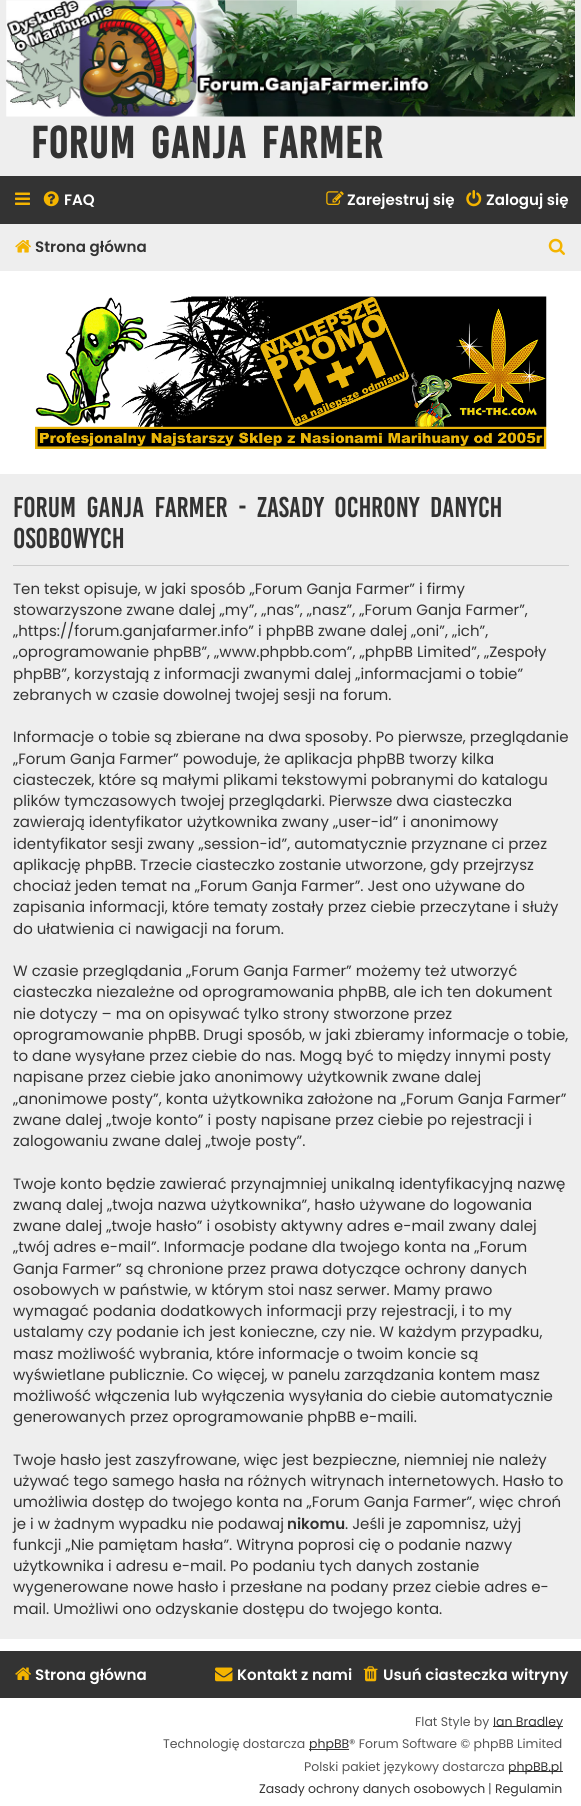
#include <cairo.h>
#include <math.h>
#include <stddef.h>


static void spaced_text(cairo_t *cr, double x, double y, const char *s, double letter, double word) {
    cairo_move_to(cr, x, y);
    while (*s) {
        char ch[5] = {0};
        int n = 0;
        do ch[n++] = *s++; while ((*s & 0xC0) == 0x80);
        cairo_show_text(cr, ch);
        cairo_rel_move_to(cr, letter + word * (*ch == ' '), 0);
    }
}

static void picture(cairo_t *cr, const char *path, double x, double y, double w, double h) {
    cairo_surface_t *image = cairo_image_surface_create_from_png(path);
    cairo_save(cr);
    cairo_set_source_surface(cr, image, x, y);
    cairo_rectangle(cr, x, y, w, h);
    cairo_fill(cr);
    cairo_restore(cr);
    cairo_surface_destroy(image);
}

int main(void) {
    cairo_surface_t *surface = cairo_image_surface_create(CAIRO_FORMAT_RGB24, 581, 1806);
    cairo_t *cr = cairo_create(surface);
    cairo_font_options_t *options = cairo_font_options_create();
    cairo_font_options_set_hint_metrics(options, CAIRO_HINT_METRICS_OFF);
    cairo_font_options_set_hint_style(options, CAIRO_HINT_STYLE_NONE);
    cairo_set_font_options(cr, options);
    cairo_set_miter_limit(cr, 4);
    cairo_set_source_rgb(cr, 1, 1, 1);
    cairo_paint(cr);
    cairo_set_source_rgb(cr, 0.933, 0.933, 0.933);
    cairo_rectangle(cr, 0, 0, 581, 176);
    cairo_fill(cr);
    picture(cr, "img1.png", 6, 0, 569, 117);
    cairo_select_font_face(cr, "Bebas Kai", CAIRO_FONT_SLANT_NORMAL, CAIRO_FONT_WEIGHT_BOLD);
    cairo_set_font_size(cr, 34.4);
    cairo_set_source_rgb(cr, 0.2, 0.2, 0.2);
    spaced_text(cr, 31, 158, "Forum Ganja Farmer", 1.25, 5);
    cairo_rectangle(cr, 0, 176, 581, 48);
    cairo_fill(cr);
    picture(cr, "img2.png", 15, 192, 15, 13);
    picture(cr, "img3.png", 43, 191, 16, 16);
    cairo_select_font_face(cr, "Poppins SemiBold", CAIRO_FONT_SLANT_NORMAL, CAIRO_FONT_WEIGHT_NORMAL);
    cairo_set_font_size(cr, 15.1);
    cairo_set_source_rgb(cr, 1, 1, 1);
    cairo_move_to(cr, 64, 205);
    cairo_show_text(cr, "FAQ");
    picture(cr, "img4.png", 326, 191, 18, 14);
    cairo_move_to(cr, 347, 205);
    cairo_show_text(cr, "Zarejestruj się");
    picture(cr, "img5.png", 466, 190, 16, 17);
    cairo_move_to(cr, 486, 205);
    cairo_show_text(cr, "Zaloguj się");
    cairo_set_source_rgb(cr, 0.933, 0.933, 0.933);
    cairo_rectangle(cr, 0, 224, 581, 47);
    cairo_fill(cr);
    picture(cr, "img6.png", 15, 240, 16, 13);
    cairo_set_source_rgb(cr, 0.2, 0.2, 0.2);
    cairo_move_to(cr, 35, 252);
    cairo_show_text(cr, "Strona główna");
    picture(cr, "img7.png", 548, 238, 17, 17);
    picture(cr, "img8.png", 35, 296, 512, 153);
    cairo_set_source_rgb(cr, 0.933, 0.933, 0.933);
    cairo_rectangle(cr, 0, 474, 581, 1165);
    cairo_fill(cr);
    cairo_set_source_rgb(cr, 0.8, 0.8, 0.8);
    cairo_rectangle(cr, 13, 565, 556, 1);
    cairo_fill(cr);
    cairo_select_font_face(cr, "Bebas Kai", CAIRO_FONT_SLANT_NORMAL, CAIRO_FONT_WEIGHT_NORMAL);
    cairo_set_font_size(cr, 22);
    cairo_set_source_rgb(cr, 0.2, 0.2, 0.2);
    spaced_text(cr, 13, 517, "Forum Ganja Farmer - Zasady ochrony danych", 0, 5);
    cairo_move_to(cr, 13, 548);
    cairo_show_text(cr, "osobowych");
    cairo_select_font_face(cr, "Poppins", CAIRO_FONT_SLANT_NORMAL, CAIRO_FONT_WEIGHT_NORMAL);
    cairo_set_font_size(cr, 15);
    cairo_move_to(cr, 13, 594);
    cairo_show_text(cr, "Ten tekst opisuje, w jaki sposób „Forum Ganja Farmer” i firmy");
    cairo_move_to(cr, 13, 615);
    cairo_show_text(cr, "stowarzyszone zwane dalej „my”, „nas”, „nasz”, „Forum Ganja Farmer”,");
    cairo_move_to(cr, 13, 636);
    cairo_show_text(cr, "„https://forum.ganjafarmer.info” i phpBB zwane dalej „oni”, „ich”,");
    cairo_move_to(cr, 13, 657);
    cairo_show_text(cr, "„oprogramowanie phpBB”, „www.phpbb.com”, „phpBB Limited”, „Zespoły");
    cairo_move_to(cr, 13, 679);
    cairo_show_text(cr, "phpBB”, korzystają z informacji zwanymi dalej „informacjami o tobie”");
    cairo_move_to(cr, 13, 700);
    cairo_show_text(cr, "zebranych w czasie dowolnej twojej sesji na forum.");
    cairo_move_to(cr, 13, 742);
    cairo_show_text(cr, "Informacje o tobie są zbierane na dwa sposoby. Po pierwsze, przeglądanie");
    cairo_move_to(cr, 13, 764);
    cairo_show_text(cr, "„Forum Ganja Farmer” powoduje, że aplikacja phpBB tworzy kilka");
    cairo_move_to(cr, 13, 785);
    cairo_show_text(cr, "ciasteczek, które są małymi plikami tekstowymi pobranymi do katalogu");
    cairo_move_to(cr, 13, 806);
    cairo_show_text(cr, "plików tymczasowych twojej przeglądarki. Pierwsze dwa ciasteczka");
    cairo_move_to(cr, 13, 827);
    cairo_show_text(cr, "zawierają identyfikator użytkownika zwany „user-id” i anonimowy");
    cairo_move_to(cr, 13, 849);
    cairo_show_text(cr, "identyfikator sesji zwany „session-id”, automatycznie przyznane ci przez");
    cairo_move_to(cr, 13, 870);
    cairo_show_text(cr, "aplikację phpBB. Trzecie ciasteczko zostanie utworzone, gdy przejrzysz");
    cairo_move_to(cr, 13, 891);
    cairo_show_text(cr, "chociaż jeden temat na „Forum Ganja Farmer”. Jest ono używane do");
    cairo_move_to(cr, 13, 912);
    cairo_show_text(cr, "zapisania informacji, które tematy zostały przez ciebie przeczytane i służy");
    cairo_move_to(cr, 13, 934);
    cairo_show_text(cr, "do ułatwienia ci nawigacji na forum.");
    cairo_move_to(cr, 13, 976);
    cairo_show_text(cr, "W czasie przeglądania „Forum Ganja Farmer” możemy też utworzyć");
    cairo_move_to(cr, 13, 997);
    cairo_show_text(cr, "ciasteczka niezależne od oprogramowania phpBB, ale ich ten dokument");
    cairo_move_to(cr, 13, 1019);
    cairo_show_text(cr, "nie dotyczy – ma on opisywać tylko strony stworzone przez");
    cairo_move_to(cr, 13, 1040);
    cairo_show_text(cr, "oprogramowanie phpBB. Drugi sposób, w jaki zbieramy informacje o tobie,");
    cairo_move_to(cr, 13, 1061);
    cairo_show_text(cr, "to dane wysyłane przez ciebie do nas. Mogą być to między innymi posty");
    cairo_move_to(cr, 13, 1082);
    cairo_show_text(cr, "napisane przez ciebie jako anonimowy użytkownik zwane dalej");
    cairo_move_to(cr, 13, 1104);
    cairo_show_text(cr, "„anonimowe posty”, konta użytkownika założone na „Forum Ganja Farmer”");
    cairo_move_to(cr, 13, 1125);
    cairo_show_text(cr, "zwane dalej „twoje konto” i posty napisane przez ciebie po rejestracji i");
    cairo_move_to(cr, 13, 1146);
    cairo_show_text(cr, "zalogowaniu zwane dalej „twoje posty”.");
    cairo_move_to(cr, 13, 1189);
    cairo_show_text(cr, "Twoje konto będzie zawierać przynajmniej unikalną identyfikacyjną nazwę");
    cairo_move_to(cr, 13, 1210);
    cairo_show_text(cr, "zwaną dalej „twoja nazwa użytkownika”, hasło używane do logowania");
    cairo_move_to(cr, 13, 1231);
    cairo_show_text(cr, "zwane dalej „twoje hasło” i osobisty aktywny adres e-mail zwany dalej");
    cairo_move_to(cr, 13, 1252);
    cairo_show_text(cr, "„twój adres e-mail”. Informacje podane dla twojego konta na „Forum");
    cairo_move_to(cr, 13, 1274);
    cairo_show_text(cr, "Ganja Farmer” są chronione przez prawa dotyczące ochrony danych");
    cairo_move_to(cr, 13, 1295);
    cairo_show_text(cr, "osobowych w państwie, w którym stoi nasz serwer. Mamy prawo");
    cairo_move_to(cr, 13, 1316);
    cairo_show_text(cr, "wymagać podania dodatkowych informacji przy rejestracji, i to my");
    cairo_move_to(cr, 13, 1337);
    cairo_show_text(cr, "ustalamy czy podanie ich jest konieczne, czy nie. W każdym przypadku,");
    cairo_move_to(cr, 13, 1359);
    cairo_show_text(cr, "masz możliwość wybrania, które informacje o twoim koncie są");
    cairo_move_to(cr, 13, 1380);
    cairo_show_text(cr, "wyświetlane publicznie. Co więcej, w panelu zarządzania kontem masz");
    cairo_move_to(cr, 13, 1401);
    cairo_show_text(cr, "możliwość włączenia lub wyłączenia wysyłania do ciebie automatycznie");
    cairo_move_to(cr, 13, 1422);
    cairo_show_text(cr, "generowanych przez oprogramowanie phpBB e-maili.");
    cairo_move_to(cr, 13, 1465);
    cairo_show_text(cr, "Twoje hasło jest zaszyfrowane, więc jest bezpieczne, niemniej nie należy");
    cairo_move_to(cr, 13, 1486);
    cairo_show_text(cr, "używać tego samego hasła na różnych witrynach internetowych. Hasło to");
    cairo_move_to(cr, 13, 1507);
    cairo_show_text(cr, "umożliwia dostęp do twojego konta na „Forum Ganja Farmer”, więc chroń");
    cairo_move_to(cr, 13, 1529);
    cairo_show_text(cr, "je i w żadnym wypadku nie podawaj");
    cairo_select_font_face(cr, "Poppins SemiBold", CAIRO_FONT_SLANT_NORMAL, CAIRO_FONT_WEIGHT_NORMAL);
    cairo_move_to(cr, 287, 1529);
    cairo_show_text(cr, "nikomu");
    cairo_select_font_face(cr, "Poppins", CAIRO_FONT_SLANT_NORMAL, CAIRO_FONT_WEIGHT_NORMAL);
    cairo_move_to(cr, 345, 1529);
    cairo_show_text(cr, ". Jeśli je zapomnisz, użyj");
    cairo_move_to(cr, 13, 1550);
    cairo_show_text(cr, "funkcji „Nie pamiętam hasła”. Witryna poprosi cię o podanie nazwy");
    cairo_move_to(cr, 13, 1571);
    cairo_show_text(cr, "użytkownika i adresu e-mail. Po podaniu tych danych zostanie");
    cairo_move_to(cr, 13, 1592);
    cairo_show_text(cr, "wygenerowane nowe hasło i przesłane na podany przez ciebie adres e-");
    cairo_move_to(cr, 13, 1614);
    cairo_show_text(cr, "mail. Umożliwi ono odzyskanie dostępu do twojego konta.");
    cairo_rectangle(cr, 0, 1651, 581, 47);
    cairo_fill(cr);
    picture(cr, "img9.png", 15, 1667, 16, 13);
    cairo_select_font_face(cr, "Poppins SemiBold", CAIRO_FONT_SLANT_NORMAL, CAIRO_FONT_WEIGHT_NORMAL);
    cairo_set_font_size(cr, 15.1);
    cairo_set_source_rgb(cr, 1, 1, 1);
    cairo_move_to(cr, 35, 1680);
    cairo_show_text(cr, "Strona główna");
    picture(cr, "img10.png", 215, 1667, 18, 15);
    cairo_move_to(cr, 237, 1680);
    cairo_show_text(cr, "Kontakt z nami");
    picture(cr, "img11.png", 363, 1666, 15, 16);
    cairo_move_to(cr, 383, 1680);
    cairo_show_text(cr, "Usuń ciasteczka witryny");
    cairo_select_font_face(cr, "Poppins", CAIRO_FONT_SLANT_NORMAL, CAIRO_FONT_WEIGHT_NORMAL);
    cairo_set_font_size(cr, 12.5);
    cairo_set_source_rgb(cr, 0.333, 0.333, 0.333);
    cairo_move_to(cr, 415, 1726);
    cairo_show_text(cr, "Flat Style by");
    cairo_set_source_rgb(cr, 0.2, 0.2, 0.2);
    cairo_rectangle(cr, 493, 1726, 70, 1);
    cairo_fill(cr);
    cairo_move_to(cr, 493, 1726);
    cairo_show_text(cr, "Ian Bradley");
    cairo_set_source_rgb(cr, 0.333, 0.333, 0.333);
    cairo_move_to(cr, 163, 1748);
    cairo_show_text(cr, "Technologię dostarcza");
    cairo_set_source_rgb(cr, 0.2, 0.2, 0.2);
    cairo_rectangle(cr, 309, 1749, 40, 1);
    cairo_fill(cr);
    cairo_move_to(cr, 309, 1748);
    cairo_show_text(cr, "phpBB");
    cairo_set_source_rgb(cr, 0.333, 0.333, 0.333);
    cairo_move_to(cr, 349, 1748);
    cairo_show_text(cr, "® Forum Software © phpBB Limited");
    cairo_move_to(cr, 304, 1771);
    cairo_show_text(cr, "Polski pakiet językowy dostarcza");
    cairo_set_source_rgb(cr, 0.2, 0.2, 0.2);
    cairo_rectangle(cr, 509, 1771, 54, 1);
    cairo_fill(cr);
    cairo_move_to(cr, 508, 1771);
    cairo_show_text(cr, "phpBB.pl");
    cairo_move_to(cr, 259, 1793);
    cairo_show_text(cr, "Zasady ochrony danych osobowych");
    cairo_set_source_rgb(cr, 0.333, 0.333, 0.333);
    cairo_move_to(cr, 488, 1793);
    cairo_show_text(cr, "|");
    cairo_set_source_rgb(cr, 0.2, 0.2, 0.2);
    cairo_move_to(cr, 495, 1793);
    cairo_show_text(cr, "Regulamin");
    cairo_surface_write_to_png(surface, "page.png");
    cairo_font_options_destroy(options);
    cairo_destroy(cr);
    cairo_surface_destroy(surface);
    return 0;
}
